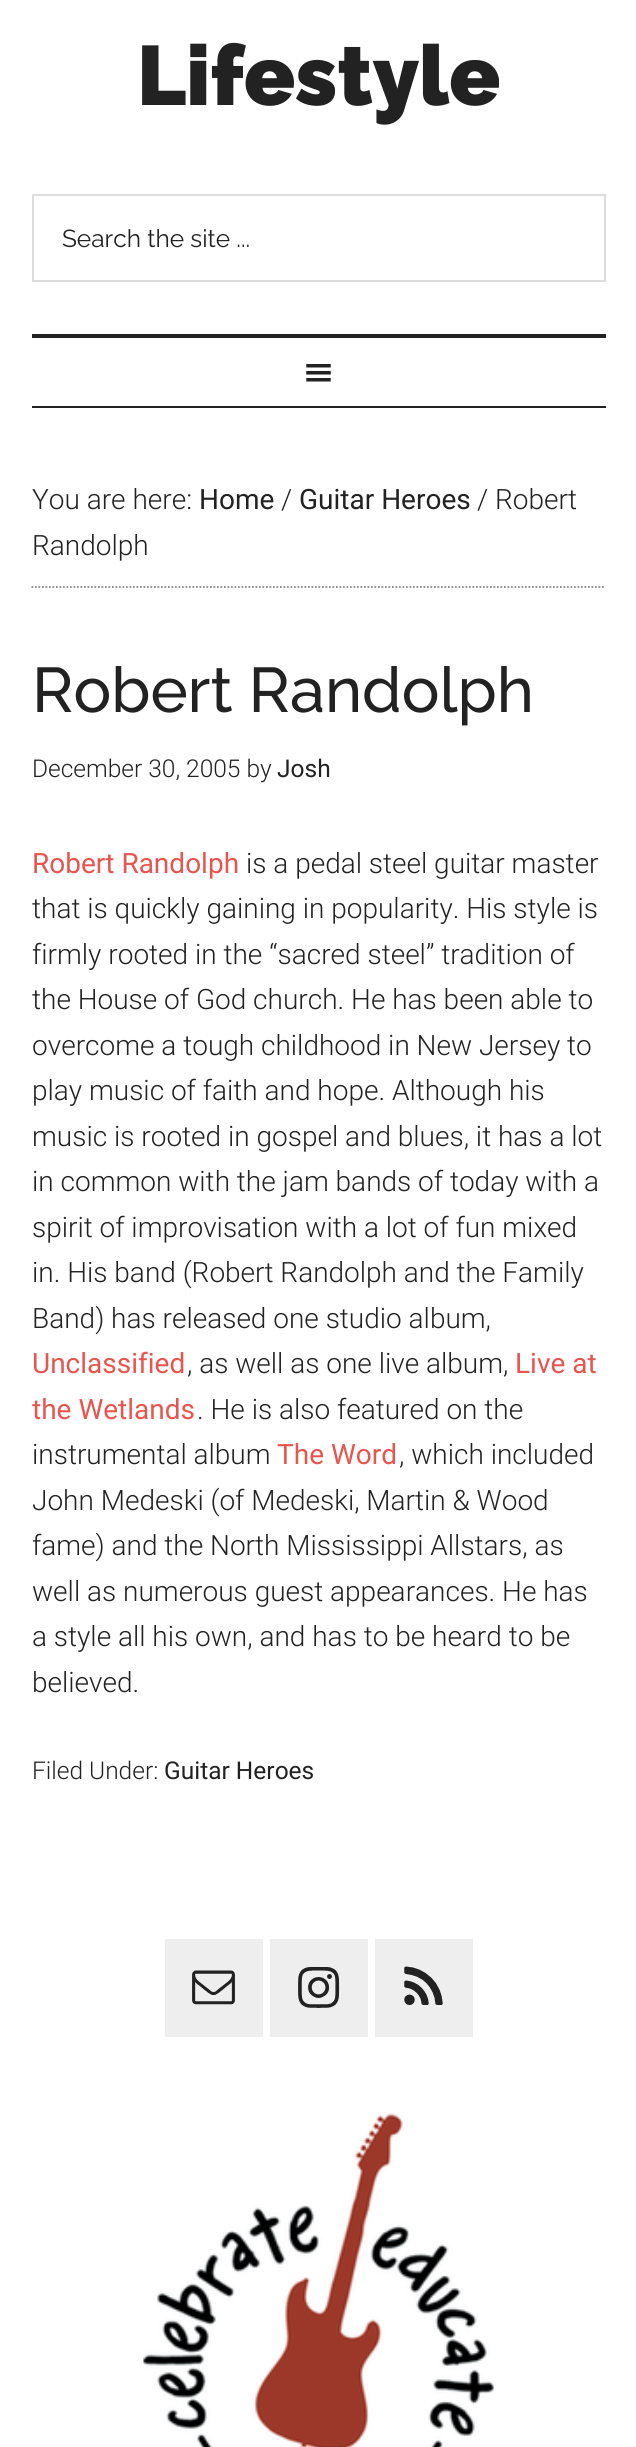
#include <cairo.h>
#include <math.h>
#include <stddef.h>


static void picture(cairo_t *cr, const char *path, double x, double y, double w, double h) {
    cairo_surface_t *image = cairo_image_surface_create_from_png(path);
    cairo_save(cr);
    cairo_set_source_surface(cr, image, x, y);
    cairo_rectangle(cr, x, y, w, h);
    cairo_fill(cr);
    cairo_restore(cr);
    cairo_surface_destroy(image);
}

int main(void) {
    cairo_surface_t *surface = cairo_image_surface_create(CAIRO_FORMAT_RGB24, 636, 2447);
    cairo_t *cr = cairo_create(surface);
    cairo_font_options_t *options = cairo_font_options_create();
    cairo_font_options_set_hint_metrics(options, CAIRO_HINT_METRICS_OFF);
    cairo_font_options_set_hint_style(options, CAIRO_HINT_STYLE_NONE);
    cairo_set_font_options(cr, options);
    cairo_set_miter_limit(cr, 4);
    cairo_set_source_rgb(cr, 1, 1, 1);
    cairo_paint(cr);
    cairo_set_source_rgb(cr, 0.133, 0.133, 0.133);
    cairo_rectangle(cr, 32, 334, 574, 4);
    cairo_fill(cr);
    cairo_select_font_face(cr, "Raleway Black", CAIRO_FONT_SLANT_NORMAL, CAIRO_FONT_WEIGHT_NORMAL);
    cairo_set_font_size(cr, 84);
    cairo_move_to(cr, 137, 105);
    cairo_show_text(cr, "Lifestyle");
    cairo_rectangle(cr, 33, 195, 572, 86);
    cairo_set_source_rgb(cr, 0.867, 0.867, 0.867);
    cairo_stroke(cr);
    cairo_select_font_face(cr, "Raleway", CAIRO_FONT_SLANT_NORMAL, CAIRO_FONT_WEIGHT_NORMAL);
    cairo_set_font_size(cr, 24.5);
    cairo_set_source_rgb(cr, 0.133, 0.133, 0.133);
    cairo_move_to(cr, 62, 247);
    cairo_show_text(cr, "Search the site ...");
    cairo_rectangle(cr, 32, 406, 574, 2);
    cairo_fill(cr);
    picture(cr, "img1.png", 306, 364, 25, 18);
    cairo_new_path(cr);
    cairo_move_to(cr, 31.5, 587);
    cairo_line_to(cr, 605.5, 587);
    cairo_set_source_rgb(cr, 0.533, 0.533, 0.533);
    cairo_set_line_width(cr, 1.8);
    cairo_set_dash(cr, (double[]){1.75, 1.75}, 2, 0);
    cairo_stroke(cr);
    cairo_select_font_face(cr, "Roboto Light", CAIRO_FONT_SLANT_NORMAL, CAIRO_FONT_WEIGHT_NORMAL);
    cairo_set_font_size(cr, 28);
    cairo_set_source_rgb(cr, 0.133, 0.133, 0.133);
    cairo_move_to(cr, 32, 509);
    cairo_show_text(cr, "You are here:");
    cairo_select_font_face(cr, "Roboto", CAIRO_FONT_SLANT_NORMAL, CAIRO_FONT_WEIGHT_NORMAL);
    cairo_move_to(cr, 199, 509);
    cairo_show_text(cr, "Home");
    cairo_select_font_face(cr, "Roboto Light", CAIRO_FONT_SLANT_NORMAL, CAIRO_FONT_WEIGHT_NORMAL);
    cairo_move_to(cr, 281, 509);
    cairo_show_text(cr, "/");
    cairo_select_font_face(cr, "Roboto", CAIRO_FONT_SLANT_NORMAL, CAIRO_FONT_WEIGHT_NORMAL);
    cairo_move_to(cr, 299, 509);
    cairo_show_text(cr, "Guitar Heroes");
    cairo_select_font_face(cr, "Roboto Light", CAIRO_FONT_SLANT_NORMAL, CAIRO_FONT_WEIGHT_NORMAL);
    cairo_move_to(cr, 477, 509);
    cairo_show_text(cr, "/ Robert");
    cairo_move_to(cr, 32, 555);
    cairo_show_text(cr, "Randolph");
    cairo_select_font_face(cr, "Raleway Medium", CAIRO_FONT_SLANT_NORMAL, CAIRO_FONT_WEIGHT_NORMAL);
    cairo_set_font_size(cr, 63);
    cairo_move_to(cr, 32, 712);
    cairo_show_text(cr, "Robert Randolph");
    cairo_select_font_face(cr, "Roboto Light", CAIRO_FONT_SLANT_NORMAL, CAIRO_FONT_WEIGHT_NORMAL);
    cairo_set_font_size(cr, 24.5);
    cairo_move_to(cr, 32, 777);
    cairo_show_text(cr, "December 30, 2005 by");
    cairo_select_font_face(cr, "Roboto", CAIRO_FONT_SLANT_NORMAL, CAIRO_FONT_WEIGHT_NORMAL);
    cairo_move_to(cr, 277, 777);
    cairo_show_text(cr, "Josh");
    cairo_set_font_size(cr, 28);
    cairo_set_source_rgb(cr, 0.91, 0.333, 0.306);
    cairo_move_to(cr, 32, 873);
    cairo_show_text(cr, "Robert Randolph");
    cairo_select_font_face(cr, "Roboto Light", CAIRO_FONT_SLANT_NORMAL, CAIRO_FONT_WEIGHT_NORMAL);
    cairo_set_source_rgb(cr, 0.133, 0.133, 0.133);
    cairo_move_to(cr, 246, 873);
    cairo_show_text(cr, "is a pedal steel guitar master");
    cairo_move_to(cr, 32, 918);
    cairo_show_text(cr, "that is quickly gaining in popularity. His style is");
    cairo_move_to(cr, 32, 964);
    cairo_show_text(cr, "firmly rooted in the “sacred steel” tradition of");
    cairo_move_to(cr, 32, 1009);
    cairo_show_text(cr, "the House of God church. He has been able to");
    cairo_move_to(cr, 32, 1055);
    cairo_show_text(cr, "overcome a tough childhood in New Jersey to");
    cairo_move_to(cr, 32, 1100);
    cairo_show_text(cr, "play music of faith and hope. Although his");
    cairo_move_to(cr, 32, 1146);
    cairo_show_text(cr, "music is rooted in gospel and blues, it has a lot");
    cairo_move_to(cr, 32, 1191);
    cairo_show_text(cr, "in common with the jam bands of today with a");
    cairo_move_to(cr, 32, 1237);
    cairo_show_text(cr, "spirit of improvisation with a lot of fun mixed");
    cairo_move_to(cr, 32, 1282);
    cairo_show_text(cr, "in. His band (Robert Randolph and the Family");
    cairo_move_to(cr, 32, 1328);
    cairo_show_text(cr, "Band) has released one studio album,");
    cairo_select_font_face(cr, "Roboto", CAIRO_FONT_SLANT_NORMAL, CAIRO_FONT_WEIGHT_NORMAL);
    cairo_set_source_rgb(cr, 0.91, 0.333, 0.306);
    cairo_move_to(cr, 32, 1373);
    cairo_show_text(cr, "Unclassified");
    cairo_select_font_face(cr, "Roboto Light", CAIRO_FONT_SLANT_NORMAL, CAIRO_FONT_WEIGHT_NORMAL);
    cairo_set_source_rgb(cr, 0.133, 0.133, 0.133);
    cairo_move_to(cr, 187, 1373);
    cairo_show_text(cr, ", as well as one live album,");
    cairo_select_font_face(cr, "Roboto", CAIRO_FONT_SLANT_NORMAL, CAIRO_FONT_WEIGHT_NORMAL);
    cairo_set_source_rgb(cr, 0.91, 0.333, 0.306);
    cairo_move_to(cr, 515, 1373);
    cairo_show_text(cr, "Live at");
    cairo_move_to(cr, 32, 1419);
    cairo_show_text(cr, "the Wetlands");
    cairo_select_font_face(cr, "Roboto Light", CAIRO_FONT_SLANT_NORMAL, CAIRO_FONT_WEIGHT_NORMAL);
    cairo_set_source_rgb(cr, 0.133, 0.133, 0.133);
    cairo_move_to(cr, 197, 1419);
    cairo_show_text(cr, ". He is also featured on the");
    cairo_move_to(cr, 32, 1464);
    cairo_show_text(cr, "instrumental album");
    cairo_select_font_face(cr, "Roboto", CAIRO_FONT_SLANT_NORMAL, CAIRO_FONT_WEIGHT_NORMAL);
    cairo_set_source_rgb(cr, 0.91, 0.333, 0.306);
    cairo_move_to(cr, 277, 1464);
    cairo_show_text(cr, "The Word");
    cairo_select_font_face(cr, "Roboto Light", CAIRO_FONT_SLANT_NORMAL, CAIRO_FONT_WEIGHT_NORMAL);
    cairo_set_source_rgb(cr, 0.133, 0.133, 0.133);
    cairo_move_to(cr, 399, 1464);
    cairo_show_text(cr, ", which included");
    cairo_move_to(cr, 32, 1510);
    cairo_show_text(cr, "John Medeski (of Medeski, Martin & Wood");
    cairo_move_to(cr, 32, 1555);
    cairo_show_text(cr, "fame) and the North Mississippi Allstars, as");
    cairo_move_to(cr, 32, 1601);
    cairo_show_text(cr, "well as numerous guest appearances. He has");
    cairo_move_to(cr, 32, 1646);
    cairo_show_text(cr, "a style all his own, and has to be heard to be");
    cairo_move_to(cr, 32, 1692);
    cairo_show_text(cr, "believed.");
    cairo_set_font_size(cr, 24.5);
    cairo_move_to(cr, 32, 1779);
    cairo_show_text(cr, "Filed Under:");
    cairo_select_font_face(cr, "Roboto", CAIRO_FONT_SLANT_NORMAL, CAIRO_FONT_WEIGHT_NORMAL);
    cairo_move_to(cr, 164, 1779);
    cairo_show_text(cr, "Guitar Heroes");
    cairo_set_source_rgb(cr, 0.933, 0.933, 0.933);
    cairo_rectangle(cr, 165, 1939, 98, 98);
    cairo_fill(cr);
    picture(cr, "img2.png", 192, 1970, 43, 35);
    cairo_rectangle(cr, 270, 1939, 98, 98);
    cairo_fill(cr);
    picture(cr, "img3.png", 298, 1967, 42, 41);
    cairo_rectangle(cr, 375, 1939, 98, 98);
    cairo_fill(cr);
    picture(cr, "img4.png", 404, 1966, 39, 39);
    picture(cr, "img5.png", 143, 2113, 351, 334);
    cairo_surface_write_to_png(surface, "page.png");
    cairo_font_options_destroy(options);
    cairo_destroy(cr);
    cairo_surface_destroy(surface);
    return 0;
}
